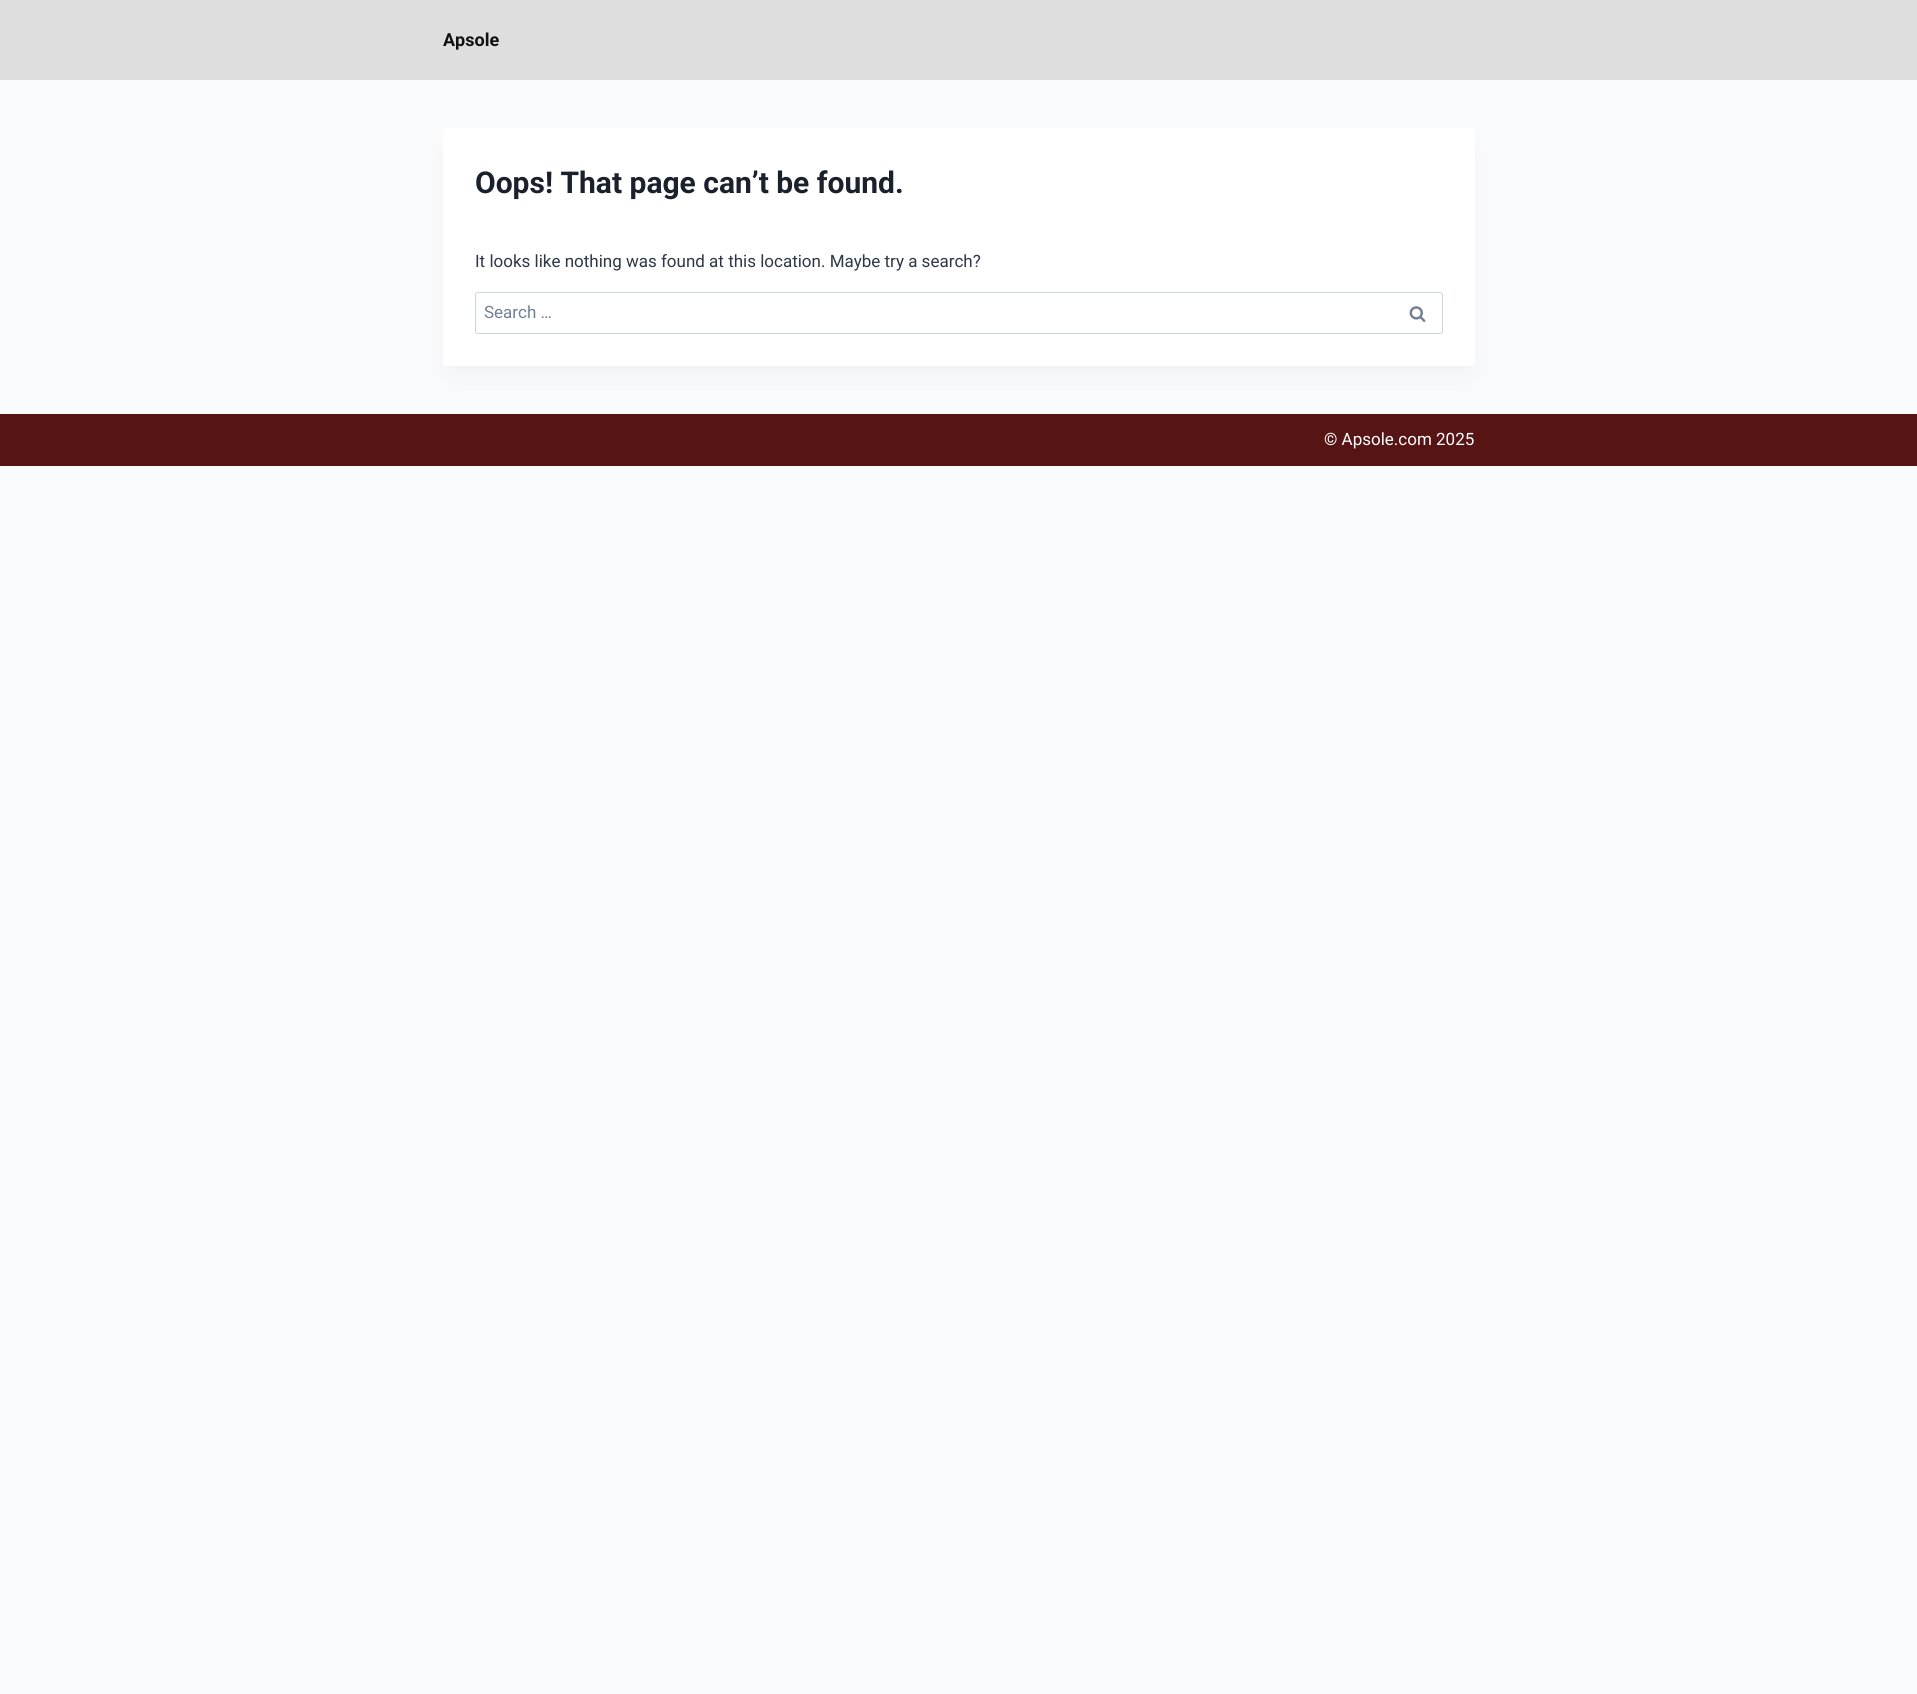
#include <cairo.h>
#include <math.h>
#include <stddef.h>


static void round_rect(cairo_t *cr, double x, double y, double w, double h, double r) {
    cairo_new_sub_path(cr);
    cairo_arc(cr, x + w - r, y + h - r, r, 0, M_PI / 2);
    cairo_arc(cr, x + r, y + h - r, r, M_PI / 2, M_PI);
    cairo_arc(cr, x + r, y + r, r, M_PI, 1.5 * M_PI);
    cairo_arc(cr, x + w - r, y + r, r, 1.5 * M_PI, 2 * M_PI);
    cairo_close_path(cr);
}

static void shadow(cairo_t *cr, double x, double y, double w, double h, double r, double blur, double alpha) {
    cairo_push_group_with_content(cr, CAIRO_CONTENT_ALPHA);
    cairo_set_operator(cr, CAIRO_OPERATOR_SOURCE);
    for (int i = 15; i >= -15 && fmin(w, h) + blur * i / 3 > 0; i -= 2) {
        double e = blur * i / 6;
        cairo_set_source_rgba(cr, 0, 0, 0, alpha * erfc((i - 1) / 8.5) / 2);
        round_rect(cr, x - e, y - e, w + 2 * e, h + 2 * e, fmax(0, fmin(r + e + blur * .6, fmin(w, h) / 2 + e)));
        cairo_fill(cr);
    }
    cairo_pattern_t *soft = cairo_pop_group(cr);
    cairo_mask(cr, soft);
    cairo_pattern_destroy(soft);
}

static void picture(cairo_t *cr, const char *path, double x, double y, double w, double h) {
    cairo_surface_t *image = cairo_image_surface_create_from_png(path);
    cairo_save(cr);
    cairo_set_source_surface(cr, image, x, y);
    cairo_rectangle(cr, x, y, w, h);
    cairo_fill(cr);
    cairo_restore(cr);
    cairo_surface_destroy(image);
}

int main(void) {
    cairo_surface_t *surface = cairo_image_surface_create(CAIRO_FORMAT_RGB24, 1917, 1694);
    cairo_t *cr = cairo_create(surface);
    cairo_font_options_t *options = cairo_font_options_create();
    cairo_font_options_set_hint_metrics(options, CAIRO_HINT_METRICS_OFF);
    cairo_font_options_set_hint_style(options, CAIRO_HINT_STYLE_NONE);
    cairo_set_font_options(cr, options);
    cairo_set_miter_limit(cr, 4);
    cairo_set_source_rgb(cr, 0.969, 0.98, 0.988);
    cairo_paint(cr);
    cairo_set_source_rgb(cr, 0.871, 0.871, 0.871);
    cairo_rectangle(cr, 0, 0, 1917, 80);
    cairo_fill(cr);
    cairo_select_font_face(cr, "Roboto", CAIRO_FONT_SLANT_NORMAL, CAIRO_FONT_WEIGHT_BOLD);
    cairo_set_font_size(cr, 18);
    cairo_set_source_rgb(cr, 0.067, 0.067, 0.067);
    cairo_move_to(cr, 443, 46);
    cairo_show_text(cr, "Apsole");
    cairo_set_source_rgb(cr, 0, 0, 0);
    shadow(cr, 453, 153, 1012, 218, 0, 12.5, 0.05);
    cairo_set_source_rgb(cr, 1, 1, 1);
    round_rect(cr, 443, 128, 1032, 238, 4);
    cairo_fill(cr);
    cairo_set_font_size(cr, 30);
    cairo_set_source_rgb(cr, 0.102, 0.125, 0.173);
    cairo_move_to(cr, 475, 193);
    cairo_show_text(cr, "Oops! That page can’t be found.");
    cairo_select_font_face(cr, "Roboto", CAIRO_FONT_SLANT_NORMAL, CAIRO_FONT_WEIGHT_NORMAL);
    cairo_set_font_size(cr, 17);
    cairo_set_source_rgb(cr, 0.176, 0.216, 0.282);
    cairo_move_to(cr, 475, 267);
    cairo_show_text(cr, "It looks like nothing was found at this location. Maybe try a search?");
    round_rect(cr, 475.5, 292.5, 967, 41, 2.5);
    cairo_set_source_rgb(cr, 0.796, 0.835, 0.878);
    cairo_set_line_width(cr, 1);
    cairo_stroke(cr);
    cairo_set_source_rgb(cr, 0.443, 0.502, 0.588);
    cairo_move_to(cr, 484, 318);
    cairo_show_text(cr, "Search …");
    picture(cr, "img1.png", 1409, 306, 17, 16);
    cairo_set_source_rgb(cr, 0.337, 0.082, 0.082);
    cairo_rectangle(cr, 0, 414, 1917, 52);
    cairo_fill(cr);
    cairo_set_source_rgb(cr, 1, 1, 1);
    cairo_move_to(cr, 1324, 445);
    cairo_show_text(cr, "© Apsole.com 2025");
    cairo_surface_write_to_png(surface, "page.png");
    cairo_font_options_destroy(options);
    cairo_destroy(cr);
    cairo_surface_destroy(surface);
    return 0;
}
